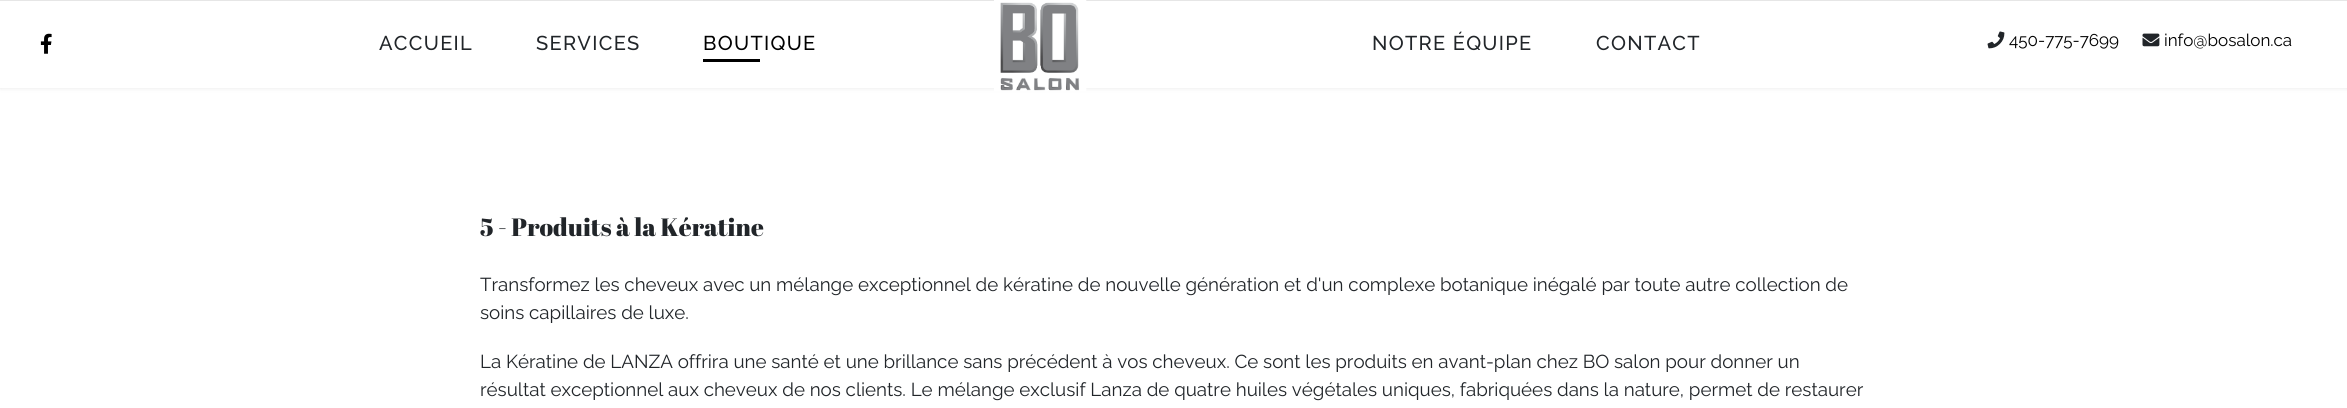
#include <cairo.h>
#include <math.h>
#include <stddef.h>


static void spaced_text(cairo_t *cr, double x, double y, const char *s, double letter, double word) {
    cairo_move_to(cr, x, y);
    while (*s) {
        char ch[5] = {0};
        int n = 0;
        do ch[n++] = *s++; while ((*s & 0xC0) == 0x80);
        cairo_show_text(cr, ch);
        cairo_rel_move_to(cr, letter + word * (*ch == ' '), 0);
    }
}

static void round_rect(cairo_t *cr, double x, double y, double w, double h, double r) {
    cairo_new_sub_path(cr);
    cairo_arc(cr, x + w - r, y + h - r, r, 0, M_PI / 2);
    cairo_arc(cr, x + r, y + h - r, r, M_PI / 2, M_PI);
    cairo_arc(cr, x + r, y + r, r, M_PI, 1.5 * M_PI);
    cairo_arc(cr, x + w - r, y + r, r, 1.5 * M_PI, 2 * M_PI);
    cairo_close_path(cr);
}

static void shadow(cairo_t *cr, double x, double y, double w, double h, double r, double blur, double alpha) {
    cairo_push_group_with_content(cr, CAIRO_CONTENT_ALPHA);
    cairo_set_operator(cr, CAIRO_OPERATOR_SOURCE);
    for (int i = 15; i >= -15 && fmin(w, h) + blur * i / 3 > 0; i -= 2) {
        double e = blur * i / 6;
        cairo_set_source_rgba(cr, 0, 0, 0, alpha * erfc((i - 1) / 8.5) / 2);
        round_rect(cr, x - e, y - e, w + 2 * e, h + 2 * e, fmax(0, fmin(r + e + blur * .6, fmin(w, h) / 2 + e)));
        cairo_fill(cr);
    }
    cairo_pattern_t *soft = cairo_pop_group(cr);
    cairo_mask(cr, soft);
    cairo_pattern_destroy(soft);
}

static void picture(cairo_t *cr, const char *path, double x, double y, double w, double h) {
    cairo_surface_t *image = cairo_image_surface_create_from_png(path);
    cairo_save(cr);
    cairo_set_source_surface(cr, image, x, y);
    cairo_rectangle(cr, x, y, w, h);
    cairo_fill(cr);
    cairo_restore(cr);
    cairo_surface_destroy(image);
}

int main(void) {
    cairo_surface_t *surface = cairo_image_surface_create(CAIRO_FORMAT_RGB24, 2347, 408);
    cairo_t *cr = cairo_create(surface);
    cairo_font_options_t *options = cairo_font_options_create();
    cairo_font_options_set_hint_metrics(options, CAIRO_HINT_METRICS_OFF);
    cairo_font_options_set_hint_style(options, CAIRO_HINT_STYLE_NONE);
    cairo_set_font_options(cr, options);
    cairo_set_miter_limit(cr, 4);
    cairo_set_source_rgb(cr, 1, 1, 1);
    cairo_paint(cr);
    cairo_set_source_rgb(cr, 0, 0, 0);
    shadow(cr, 0, 0, 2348, 88, 0, 2.5, 0.1);
    cairo_set_source_rgb(cr, 1, 1, 1);
    cairo_rectangle(cr, 0, 1, 2347, 87);
    cairo_fill(cr);
    cairo_set_source_rgb(cr, 0.902, 0.902, 0.902);
    cairo_rectangle(cr, 0, 0, 2347, 1);
    cairo_fill(cr);
    picture(cr, "img1.png", 40, 33, 12, 21);
    cairo_select_font_face(cr, "Raleway Medium", CAIRO_FONT_SLANT_NORMAL, CAIRO_FONT_WEIGHT_NORMAL);
    cairo_set_font_size(cr, 20);
    cairo_set_source_rgb(cr, 0.129, 0.145, 0.161);
    spaced_text(cr, 379, 50, "ACCUEIL", 1.3, 0);
    spaced_text(cr, 536, 50, "SERVICES", 1.3, 0);
    cairo_set_source_rgb(cr, 0, 0, 0);
    spaced_text(cr, 703, 50, "BOUTIQUE", 1.3, 0);
    cairo_rectangle(cr, 703, 59, 57, 3);
    cairo_fill(cr);
    picture(cr, "img2.png", 994, 0, 93, 91);
    cairo_set_source_rgb(cr, 0.129, 0.145, 0.161);
    spaced_text(cr, 1372, 50, "NOTRE ÉQUIPE", 1.3, 0);
    spaced_text(cr, 1596, 50, "CONTACT", 1.3, 0);
    picture(cr, "img3.png", 1987, 31, 18, 18);
    cairo_select_font_face(cr, "Raleway", CAIRO_FONT_SLANT_NORMAL, CAIRO_FONT_WEIGHT_NORMAL);
    cairo_set_font_size(cr, 17);
    cairo_set_source_rgb(cr, 0, 0, 0);
    cairo_move_to(cr, 2009, 46);
    cairo_show_text(cr, "450-775-7699");
    picture(cr, "img4.png", 2142, 33, 18, 14);
    cairo_move_to(cr, 2164, 46);
    cairo_show_text(cr, "info@bosalon.ca");
    cairo_select_font_face(cr, "Abril Fatface", CAIRO_FONT_SLANT_NORMAL, CAIRO_FONT_WEIGHT_NORMAL);
    cairo_set_font_size(cr, 25);
    cairo_set_source_rgb(cr, 0.129, 0.145, 0.161);
    cairo_move_to(cr, 480, 236);
    cairo_show_text(cr, "5 - Produits à la Kératine");
    cairo_select_font_face(cr, "Raleway", CAIRO_FONT_SLANT_NORMAL, CAIRO_FONT_WEIGHT_NORMAL);
    cairo_set_font_size(cr, 18.75);
    cairo_move_to(cr, 480, 291);
    cairo_show_text(cr, "Transformez les cheveux avec un mélange exceptionnel de kératine de nouvelle génération et d'un complexe botanique inégalé par toute autre collection de");
    cairo_move_to(cr, 480, 319);
    cairo_show_text(cr, "soins capillaires de luxe.");
    cairo_move_to(cr, 480, 368);
    cairo_show_text(cr, "La Kératine de LANZA offrira une santé et une brillance sans précédent à vos cheveux. Ce sont les produits en avant-plan chez BO salon pour donner un");
    cairo_move_to(cr, 480, 396);
    cairo_show_text(cr, "résultat exceptionnel aux cheveux de nos clients. Le mélange exclusif Lanza de quatre huiles végétales uniques, fabriquées dans la nature, permet de restaurer");
    cairo_surface_write_to_png(surface, "page.png");
    cairo_font_options_destroy(options);
    cairo_destroy(cr);
    cairo_surface_destroy(surface);
    return 0;
}
